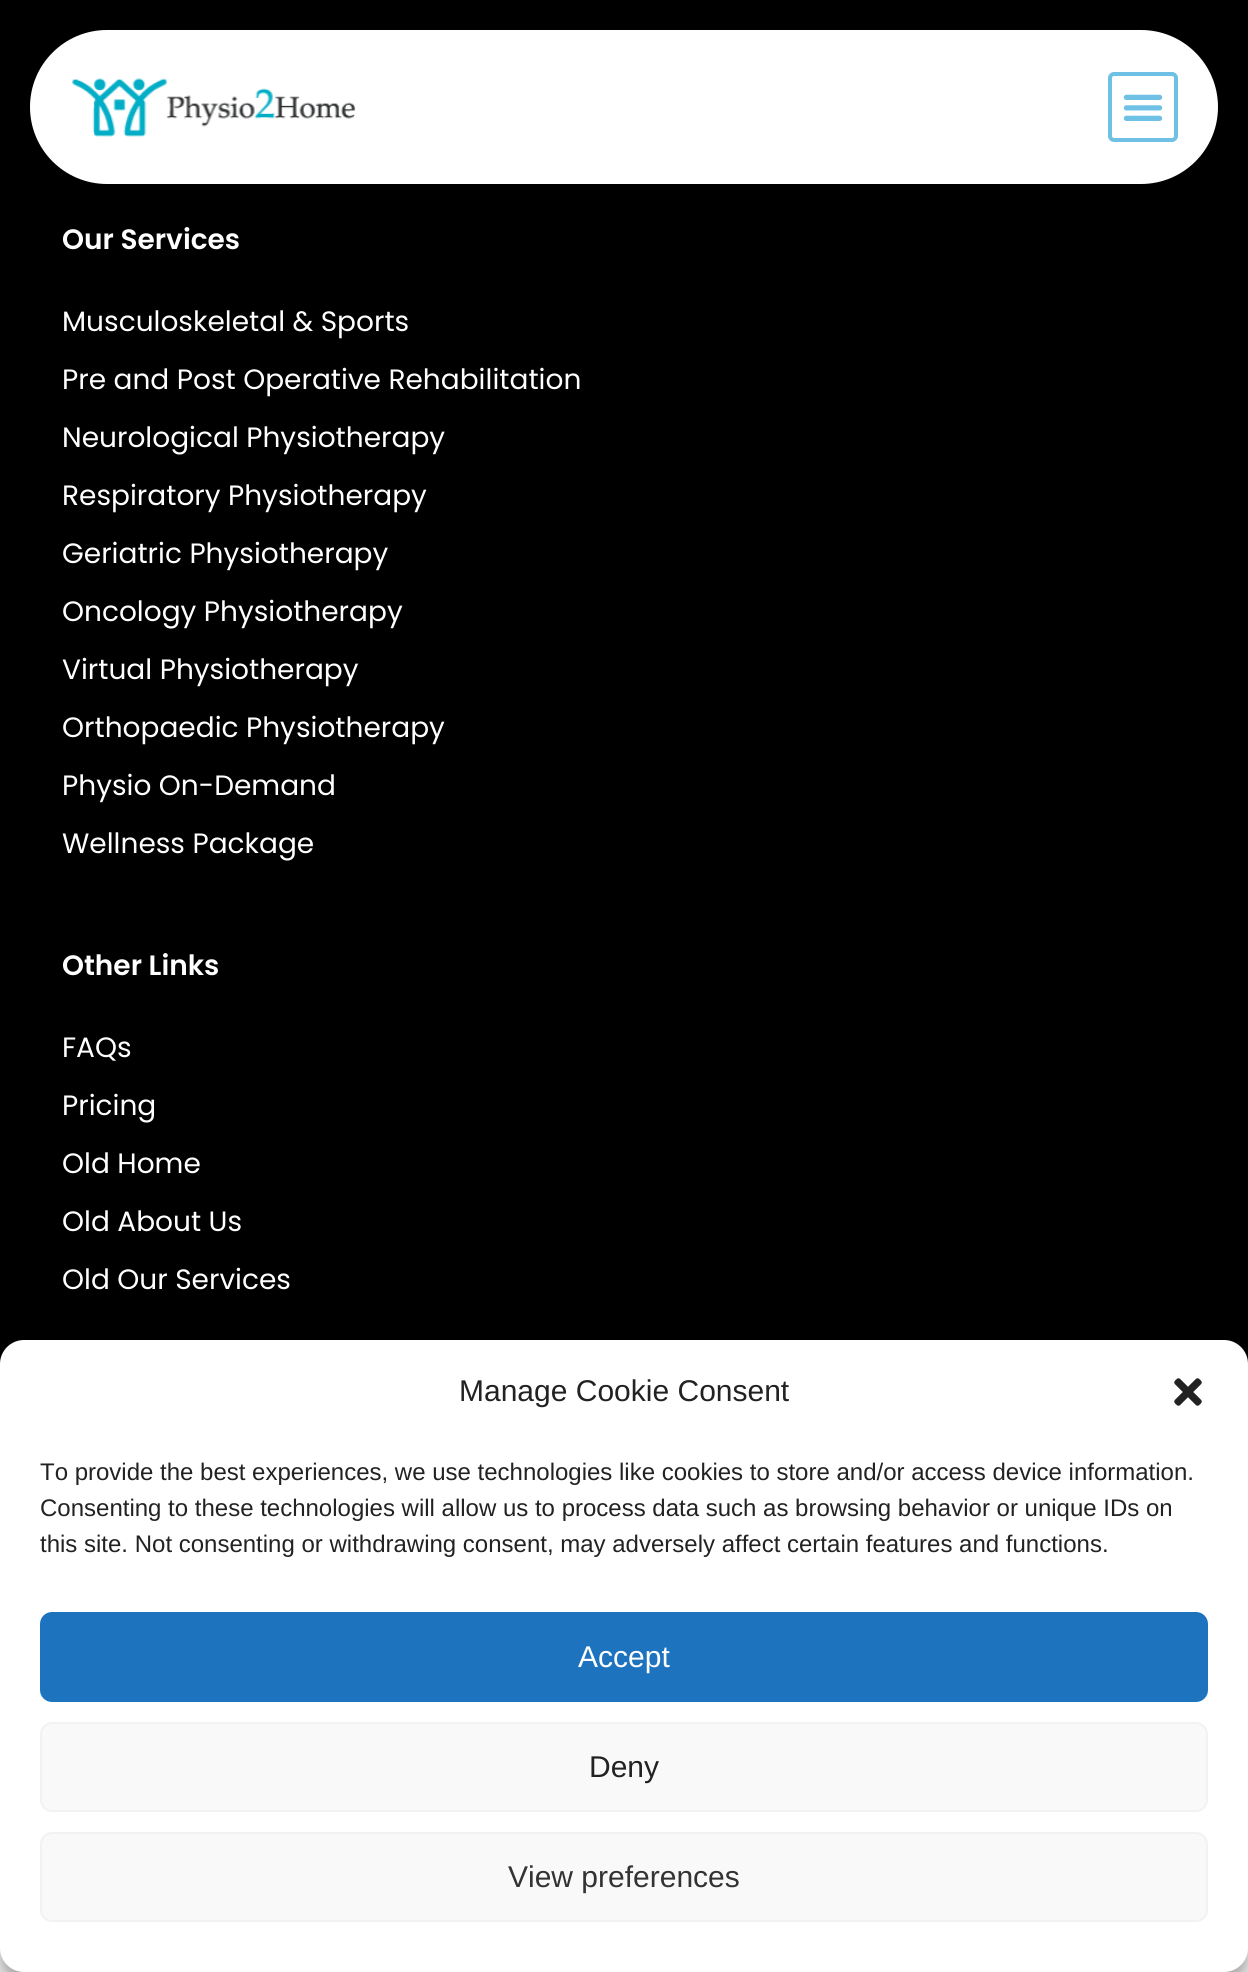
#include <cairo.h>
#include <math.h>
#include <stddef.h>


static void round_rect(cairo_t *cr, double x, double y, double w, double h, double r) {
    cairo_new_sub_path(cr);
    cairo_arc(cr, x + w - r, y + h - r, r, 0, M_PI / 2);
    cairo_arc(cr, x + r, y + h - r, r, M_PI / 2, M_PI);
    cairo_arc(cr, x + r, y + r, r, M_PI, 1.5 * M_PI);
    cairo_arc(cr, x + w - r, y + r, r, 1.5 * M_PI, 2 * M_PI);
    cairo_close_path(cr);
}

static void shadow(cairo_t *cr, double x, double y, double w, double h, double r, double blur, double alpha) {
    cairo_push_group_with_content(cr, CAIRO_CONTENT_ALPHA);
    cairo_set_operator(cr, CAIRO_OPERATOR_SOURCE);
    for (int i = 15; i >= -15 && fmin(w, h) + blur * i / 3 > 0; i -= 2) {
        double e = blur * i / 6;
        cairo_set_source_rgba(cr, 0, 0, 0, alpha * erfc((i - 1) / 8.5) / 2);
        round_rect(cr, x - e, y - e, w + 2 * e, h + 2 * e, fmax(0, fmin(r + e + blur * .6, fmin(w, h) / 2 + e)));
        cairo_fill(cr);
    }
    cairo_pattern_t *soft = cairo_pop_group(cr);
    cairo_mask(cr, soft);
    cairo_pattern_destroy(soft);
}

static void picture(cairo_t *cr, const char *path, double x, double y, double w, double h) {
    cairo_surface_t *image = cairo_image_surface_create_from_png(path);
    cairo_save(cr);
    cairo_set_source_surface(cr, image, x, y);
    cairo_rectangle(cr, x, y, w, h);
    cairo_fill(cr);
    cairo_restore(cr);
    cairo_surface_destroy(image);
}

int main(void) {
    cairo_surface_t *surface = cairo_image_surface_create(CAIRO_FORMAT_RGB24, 1248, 1972);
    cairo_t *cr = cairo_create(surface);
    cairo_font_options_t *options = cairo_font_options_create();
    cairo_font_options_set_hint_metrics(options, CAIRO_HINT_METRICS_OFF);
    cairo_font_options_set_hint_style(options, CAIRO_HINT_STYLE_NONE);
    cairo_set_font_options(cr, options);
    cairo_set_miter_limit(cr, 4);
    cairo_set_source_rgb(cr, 1, 1, 1);
    cairo_paint(cr);
    cairo_set_source_rgb(cr, 0, 0, 0);
    cairo_rectangle(cr, 0, 0, 1248, 1364);
    cairo_fill(cr);
    cairo_set_source_rgb(cr, 1, 1, 1);
    round_rect(cr, 30, 30, 1188, 154, 77);
    cairo_fill(cr);
    picture(cr, "img1.png", 72, 78, 284, 59);
    round_rect(cr, 1110, 74, 66, 66, 4);
    cairo_set_source_rgb(cr, 0.431, 0.757, 0.894);
    cairo_set_line_width(cr, 4);
    cairo_stroke(cr);
    picture(cr, "img2.png", 1123, 94, 40, 27);
    cairo_select_font_face(cr, "Poppins SemiBold", CAIRO_FONT_SLANT_NORMAL, CAIRO_FONT_WEIGHT_NORMAL);
    cairo_set_font_size(cr, 28);
    cairo_set_source_rgb(cr, 1, 1, 1);
    cairo_move_to(cr, 62, 249);
    cairo_show_text(cr, "Our Services");
    cairo_select_font_face(cr, "Poppins", CAIRO_FONT_SLANT_NORMAL, CAIRO_FONT_WEIGHT_NORMAL);
    cairo_move_to(cr, 62, 331);
    cairo_show_text(cr, "Musculoskeletal & Sports");
    cairo_move_to(cr, 62, 389);
    cairo_show_text(cr, "Pre and Post Operative Rehabilitation");
    cairo_move_to(cr, 62, 447);
    cairo_show_text(cr, "Neurological Physiotherapy");
    cairo_move_to(cr, 62, 505);
    cairo_show_text(cr, "Respiratory Physiotherapy");
    cairo_move_to(cr, 62, 563);
    cairo_show_text(cr, "Geriatric Physiotherapy");
    cairo_move_to(cr, 62, 621);
    cairo_show_text(cr, "Oncology Physiotherapy");
    cairo_move_to(cr, 62, 679);
    cairo_show_text(cr, "Virtual Physiotherapy");
    cairo_move_to(cr, 62, 737);
    cairo_show_text(cr, "Orthopaedic Physiotherapy");
    cairo_move_to(cr, 62, 795);
    cairo_show_text(cr, "Physio On-Demand");
    cairo_move_to(cr, 62, 853);
    cairo_show_text(cr, "Wellness Package");
    cairo_select_font_face(cr, "Poppins SemiBold", CAIRO_FONT_SLANT_NORMAL, CAIRO_FONT_WEIGHT_NORMAL);
    cairo_move_to(cr, 62, 975);
    cairo_show_text(cr, "Other Links");
    cairo_select_font_face(cr, "Poppins", CAIRO_FONT_SLANT_NORMAL, CAIRO_FONT_WEIGHT_NORMAL);
    cairo_move_to(cr, 62, 1057);
    cairo_show_text(cr, "FAQs");
    cairo_move_to(cr, 62, 1115);
    cairo_show_text(cr, "Pricing");
    cairo_move_to(cr, 62, 1173);
    cairo_show_text(cr, "Old Home");
    cairo_move_to(cr, 62, 1231);
    cairo_show_text(cr, "Old About Us");
    cairo_move_to(cr, 62, 1289);
    cairo_show_text(cr, "Old Our Services");
    cairo_set_source_rgb(cr, 0, 0, 0);
    shadow(cr, 0, 1352, 1248, 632, 24, 6, 0.23);
    shadow(cr, 0, 1360, 1248, 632, 24, 20, 0.19);
    cairo_set_source_rgb(cr, 1, 1, 1);
    round_rect(cr, 0, 1340, 1248, 632, 24);
    cairo_fill(cr);
    cairo_select_font_face(cr, "Liberation Sans", CAIRO_FONT_SLANT_NORMAL, CAIRO_FONT_WEIGHT_NORMAL);
    cairo_set_font_size(cr, 30);
    cairo_set_source_rgb(cr, 0.133, 0.133, 0.133);
    cairo_move_to(cr, 459, 1401);
    cairo_show_text(cr, "Manage Cookie Consent");
    picture(cr, "img3.png", 1174, 1378, 28, 28);
    cairo_set_font_size(cr, 24);
    cairo_move_to(cr, 40, 1480);
    cairo_show_text(cr, "To provide the best experiences, we use technologies like cookies to store and/or access device information.");
    cairo_move_to(cr, 40, 1516);
    cairo_show_text(cr, "Consenting to these technologies will allow us to process data such as browsing behavior or unique IDs on");
    cairo_move_to(cr, 40, 1552);
    cairo_show_text(cr, "this site. Not consenting or withdrawing consent, may adversely affect certain features and functions.");
    cairo_set_source_rgb(cr, 0.118, 0.451, 0.745);
    round_rect(cr, 41, 1613, 1166, 88, 11);
    cairo_fill_preserve(cr);
    cairo_set_line_width(cr, 2);
    cairo_stroke(cr);
    cairo_set_font_size(cr, 30);
    cairo_set_source_rgb(cr, 1, 1, 1);
    cairo_move_to(cr, 578, 1667);
    cairo_show_text(cr, "Accept");
    cairo_set_source_rgb(cr, 0.976, 0.976, 0.976);
    round_rect(cr, 41, 1723, 1166, 88, 11);
    cairo_fill_preserve(cr);
    cairo_set_source_rgb(cr, 0.949, 0.949, 0.949);
    cairo_stroke(cr);
    cairo_set_source_rgb(cr, 0.133, 0.133, 0.133);
    cairo_move_to(cr, 589, 1777);
    cairo_show_text(cr, "Deny");
    cairo_set_source_rgb(cr, 0.976, 0.976, 0.976);
    round_rect(cr, 41, 1833, 1166, 88, 11);
    cairo_fill_preserve(cr);
    cairo_set_source_rgb(cr, 0.949, 0.949, 0.949);
    cairo_stroke(cr);
    cairo_set_source_rgb(cr, 0.2, 0.2, 0.2);
    cairo_move_to(cr, 508, 1887);
    cairo_show_text(cr, "View preferences");
    cairo_surface_write_to_png(surface, "page.png");
    cairo_font_options_destroy(options);
    cairo_destroy(cr);
    cairo_surface_destroy(surface);
    return 0;
}
